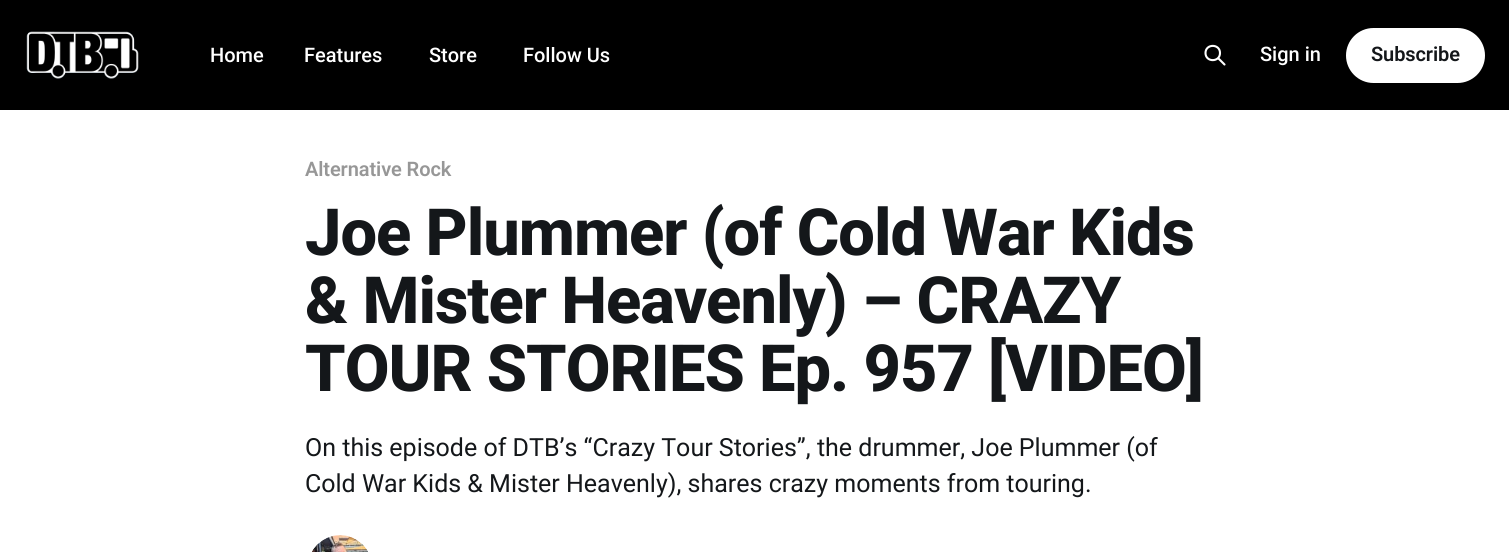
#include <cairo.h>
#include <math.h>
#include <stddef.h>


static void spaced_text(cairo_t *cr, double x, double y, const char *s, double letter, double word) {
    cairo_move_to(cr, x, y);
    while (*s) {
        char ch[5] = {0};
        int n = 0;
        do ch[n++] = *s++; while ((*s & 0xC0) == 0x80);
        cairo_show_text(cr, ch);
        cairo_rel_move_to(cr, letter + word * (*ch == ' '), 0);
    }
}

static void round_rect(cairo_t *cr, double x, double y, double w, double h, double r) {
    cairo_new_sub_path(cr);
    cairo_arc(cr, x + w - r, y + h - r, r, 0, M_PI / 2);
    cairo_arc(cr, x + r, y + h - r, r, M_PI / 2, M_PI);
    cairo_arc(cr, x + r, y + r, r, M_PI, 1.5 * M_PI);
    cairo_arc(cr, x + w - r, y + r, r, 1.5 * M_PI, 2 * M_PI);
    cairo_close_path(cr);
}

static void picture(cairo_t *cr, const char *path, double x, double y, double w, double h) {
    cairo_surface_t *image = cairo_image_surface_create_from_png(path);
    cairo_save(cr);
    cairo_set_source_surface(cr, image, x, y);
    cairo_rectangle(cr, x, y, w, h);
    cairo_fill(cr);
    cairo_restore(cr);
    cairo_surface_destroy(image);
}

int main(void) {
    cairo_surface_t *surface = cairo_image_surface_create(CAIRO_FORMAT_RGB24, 1509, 552);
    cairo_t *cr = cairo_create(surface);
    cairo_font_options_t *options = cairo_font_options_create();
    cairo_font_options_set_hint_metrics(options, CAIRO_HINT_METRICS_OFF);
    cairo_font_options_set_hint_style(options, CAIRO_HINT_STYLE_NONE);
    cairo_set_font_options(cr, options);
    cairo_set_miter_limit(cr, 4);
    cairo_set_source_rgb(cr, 1, 1, 1);
    cairo_paint(cr);
    cairo_set_source_rgb(cr, 0, 0, 0);
    cairo_rectangle(cr, 0, 0, 1509, 110);
    cairo_fill(cr);
    picture(cr, "img1.png", 26, 31, 113, 48);
    cairo_select_font_face(cr, "Roboto Medium", CAIRO_FONT_SLANT_NORMAL, CAIRO_FONT_WEIGHT_NORMAL);
    cairo_set_font_size(cr, 20);
    cairo_set_source_rgb(cr, 1, 1, 1);
    cairo_move_to(cr, 210, 62);
    cairo_show_text(cr, "Home");
    cairo_move_to(cr, 304, 62);
    cairo_show_text(cr, "Features");
    cairo_move_to(cr, 429, 62);
    cairo_show_text(cr, "Store");
    cairo_move_to(cr, 523, 62);
    cairo_show_text(cr, "Follow Us");
    cairo_new_path(cr);
    cairo_move_to(cr, 1224.5, 64.5);
    cairo_line_to(cr, 1218, 58);
    cairo_move_to(cr, 1220, 53);
    cairo_curve_to(cr, 1220, 62.5, 1205.5, 62.5, 1205.5, 53);
    cairo_curve_to(cr, 1205.5, 43.5, 1220, 43.5, 1220, 53);
    cairo_close_path(cr);
    cairo_set_line_width(cr, 2.1);
    cairo_set_line_cap(cr, CAIRO_LINE_CAP_ROUND);
    cairo_set_line_join(cr, CAIRO_LINE_JOIN_ROUND);
    cairo_stroke(cr);
    cairo_move_to(cr, 1260, 61);
    cairo_show_text(cr, "Sign in");
    round_rect(cr, 1346, 28, 139, 55, 27.5);
    cairo_fill(cr);
    cairo_select_font_face(cr, "Roboto SemiBold", CAIRO_FONT_SLANT_NORMAL, CAIRO_FONT_WEIGHT_NORMAL);
    cairo_set_source_rgb(cr, 0.082, 0.09, 0.102);
    spaced_text(cr, 1371, 61, "Subscribe", -0.1, 0);
    cairo_set_source_rgb(cr, 0.592, 0.592, 0.592);
    spaced_text(cr, 305, 176, "Alternative Rock", -0.1, 0);
    cairo_select_font_face(cr, "Roboto ExtraBold", CAIRO_FONT_SLANT_NORMAL, CAIRO_FONT_WEIGHT_NORMAL);
    cairo_set_font_size(cr, 65);
    cairo_set_source_rgb(cr, 0.082, 0.09, 0.102);
    spaced_text(cr, 305, 255, "Joe Plummer (of Cold War Kids", -1, 0);
    spaced_text(cr, 305, 323, "& Mister Heavenly) – CRAZY", -1, 0);
    spaced_text(cr, 305, 391, "TOUR STORIES Ep. 957 [VIDEO]", -1, 0);
    cairo_select_font_face(cr, "Roboto", CAIRO_FONT_SLANT_NORMAL, CAIRO_FONT_WEIGHT_NORMAL);
    cairo_set_font_size(cr, 25);
    cairo_move_to(cr, 305, 456);
    cairo_show_text(cr, "On this episode of DTB’s “Crazy Tour Stories”, the drummer, Joe Plummer (of");
    cairo_move_to(cr, 305, 492);
    cairo_show_text(cr, "Cold War Kids & Mister Heavenly), shares crazy moments from touring.");
    picture(cr, "img2.png", 312, 535, 56, 17);
    cairo_surface_write_to_png(surface, "page.png");
    cairo_font_options_destroy(options);
    cairo_destroy(cr);
    cairo_surface_destroy(surface);
    return 0;
}
